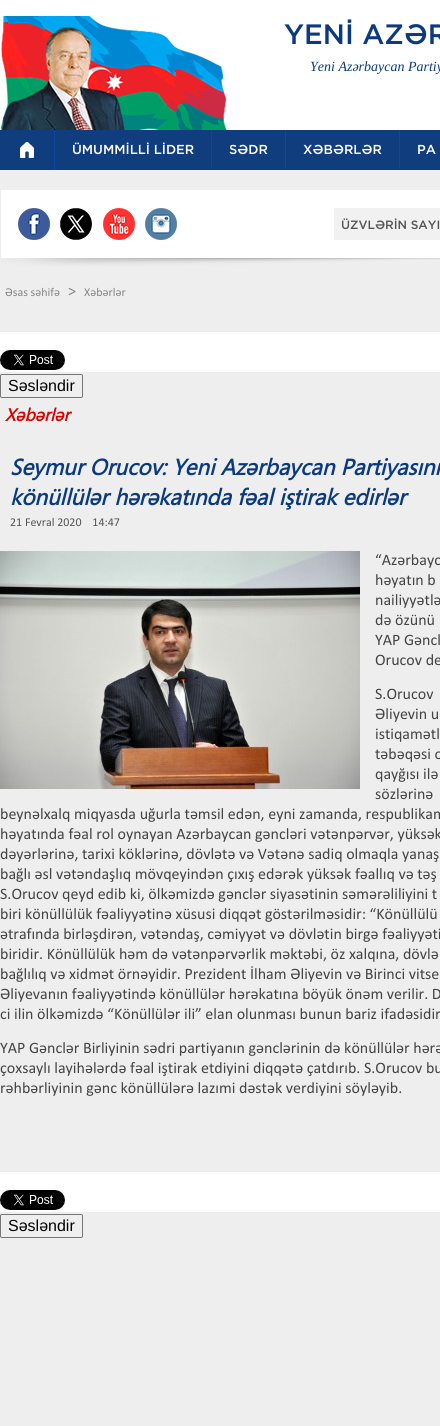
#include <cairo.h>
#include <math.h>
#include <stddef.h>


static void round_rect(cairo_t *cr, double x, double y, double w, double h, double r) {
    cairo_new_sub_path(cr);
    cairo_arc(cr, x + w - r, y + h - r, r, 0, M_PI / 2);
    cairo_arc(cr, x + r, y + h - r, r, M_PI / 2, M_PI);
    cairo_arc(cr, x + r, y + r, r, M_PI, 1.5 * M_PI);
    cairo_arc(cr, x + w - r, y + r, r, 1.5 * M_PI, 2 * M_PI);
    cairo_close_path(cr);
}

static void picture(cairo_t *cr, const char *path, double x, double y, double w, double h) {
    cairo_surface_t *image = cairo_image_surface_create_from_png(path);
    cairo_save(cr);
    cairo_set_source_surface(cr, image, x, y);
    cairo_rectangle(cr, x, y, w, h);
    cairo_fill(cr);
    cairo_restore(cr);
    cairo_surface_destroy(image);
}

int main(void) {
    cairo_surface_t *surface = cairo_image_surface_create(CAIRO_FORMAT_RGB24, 440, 1426);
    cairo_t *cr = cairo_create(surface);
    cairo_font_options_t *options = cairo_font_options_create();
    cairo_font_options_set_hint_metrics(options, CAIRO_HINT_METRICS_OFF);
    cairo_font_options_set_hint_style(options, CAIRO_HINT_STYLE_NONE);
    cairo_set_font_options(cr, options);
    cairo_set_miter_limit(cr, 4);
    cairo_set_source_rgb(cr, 0.933, 0.933, 0.933);
    cairo_paint(cr);
    cairo_set_source_rgb(cr, 1, 1, 1);
    cairo_rectangle(cr, 0, 0, 440, 130);
    cairo_fill(cr);
    picture(cr, "img1.png", 0, 16, 227, 114);
    cairo_select_font_face(cr, "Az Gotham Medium", CAIRO_FONT_SLANT_NORMAL, CAIRO_FONT_WEIGHT_NORMAL);
    cairo_set_font_size(cr, 28);
    cairo_set_source_rgb(cr, 0.043, 0.227, 0.498);
    cairo_move_to(cr, 284, 44);
    cairo_show_text(cr, "YENİ AZƏR");
    cairo_select_font_face(cr, "Liberation Serif", CAIRO_FONT_SLANT_ITALIC, CAIRO_FONT_WEIGHT_NORMAL);
    cairo_set_font_size(cr, 14);
    cairo_move_to(cr, 310, 71);
    cairo_show_text(cr, "Yeni Azərbaycan Partiy");
    cairo_set_source_rgb(cr, 0.063, 0.239, 0.49);
    cairo_rectangle(cr, 0, 130, 440, 40);
    cairo_fill(cr);
    cairo_set_source_rgb(cr, 0.047, 0.282, 0.62);
    cairo_rectangle(cr, 54, 130, 1, 40);
    cairo_fill(cr);
    picture(cr, "img2.png", 20, 142, 14, 16);
    cairo_rectangle(cr, 211, 130, 1, 38);
    cairo_fill(cr);
    cairo_select_font_face(cr, "Az Gotham Medium", CAIRO_FONT_SLANT_NORMAL, CAIRO_FONT_WEIGHT_NORMAL);
    cairo_set_font_size(cr, 13);
    cairo_set_source_rgb(cr, 1, 1, 1);
    cairo_move_to(cr, 72, 154);
    cairo_show_text(cr, "ÜMUMMİLLİ LİDER");
    cairo_set_source_rgb(cr, 0.047, 0.282, 0.62);
    cairo_rectangle(cr, 285, 130, 1, 38);
    cairo_fill(cr);
    cairo_set_source_rgb(cr, 1, 1, 1);
    cairo_move_to(cr, 229, 154);
    cairo_show_text(cr, "SƏDR");
    cairo_set_source_rgb(cr, 0.047, 0.282, 0.62);
    cairo_rectangle(cr, 399, 130, 1, 38);
    cairo_fill(cr);
    cairo_set_source_rgb(cr, 1, 1, 1);
    cairo_move_to(cr, 303, 154);
    cairo_show_text(cr, "XƏBƏRLƏR");
    cairo_move_to(cr, 417, 154);
    cairo_show_text(cr, "PA");
    picture(cr, "img3.png", 1, 190, 439, 76);
    picture(cr, "img4.png", 18, 208, 32, 32);
    picture(cr, "img5.png", 60, 208, 32, 32);
    picture(cr, "img6.png", 103, 208, 32, 32);
    picture(cr, "img7.png", 145, 208, 32, 32);
    cairo_set_font_size(cr, 12);
    cairo_set_source_rgb(cr, 0.333, 0.333, 0.333);
    cairo_move_to(cr, 341, 229);
    cairo_show_text(cr, "ÜZVLƏRİN SAYI");
    cairo_select_font_face(cr, "Calibri", CAIRO_FONT_SLANT_NORMAL, CAIRO_FONT_WEIGHT_NORMAL);
    cairo_set_source_rgb(cr, 0.522, 0.522, 0.522);
    cairo_move_to(cr, 5, 296);
    cairo_show_text(cr, "Əsas səhifə");
    cairo_set_font_size(cr, 16);
    cairo_move_to(cr, 68, 296);
    cairo_show_text(cr, ">");
    cairo_set_font_size(cr, 12);
    cairo_move_to(cr, 84, 296);
    cairo_show_text(cr, "Xəbərlər");
    cairo_set_source_rgb(cr, 1, 1, 1);
    cairo_rectangle(cr, 0, 332, 440, 40);
    cairo_fill(cr);
    picture(cr, "img8.png", 0, 350, 65, 20);
    round_rect(cr, 0.5, 374.5, 82, 23, 1.5);
    cairo_set_source_rgb(cr, 0.463, 0.463, 0.463);
    cairo_set_line_width(cr, 1);
    cairo_stroke(cr);
    cairo_select_font_face(cr, "Liberation Sans", CAIRO_FONT_SLANT_NORMAL, CAIRO_FONT_WEIGHT_NORMAL);
    cairo_set_font_size(cr, 16);
    cairo_set_source_rgb(cr, 0, 0, 0);
    cairo_move_to(cr, 8, 391);
    cairo_show_text(cr, "Səsləndir");
    cairo_select_font_face(cr, "Segoe UI", CAIRO_FONT_SLANT_ITALIC, CAIRO_FONT_WEIGHT_BOLD);
    cairo_set_font_size(cr, 17.5);
    cairo_set_source_rgb(cr, 0.851, 0, 0);
    cairo_move_to(cr, 5, 421);
    cairo_show_text(cr, "Xəbərlər");
    cairo_set_font_size(cr, 22.4);
    cairo_set_source_rgb(cr, 0.043, 0.227, 0.498);
    cairo_move_to(cr, 10, 475);
    cairo_show_text(cr, "Seymur Orucov: Yeni Azərbaycan Partiyasını");
    cairo_move_to(cr, 10, 505);
    cairo_show_text(cr, "könüllülər hərəkatında fəal iştirak edirlər");
    cairo_select_font_face(cr, "Calibri", CAIRO_FONT_SLANT_NORMAL, CAIRO_FONT_WEIGHT_NORMAL);
    cairo_set_font_size(cr, 12);
    cairo_set_source_rgb(cr, 0.333, 0.333, 0.333);
    cairo_move_to(cr, 10, 526);
    cairo_show_text(cr, "21 Fevral 2020    14:47");
    picture(cr, "img9.png", 0, 551, 360, 238);
    cairo_set_font_size(cr, 16);
    cairo_set_source_rgb(cr, 0.267, 0.267, 0.267);
    cairo_move_to(cr, 375, 565);
    cairo_show_text(cr, "“Azərbayc");
    cairo_move_to(cr, 375, 585);
    cairo_show_text(cr, "həyatın b");
    cairo_move_to(cr, 375, 605);
    cairo_show_text(cr, "nailiyyətlə");
    cairo_move_to(cr, 375, 625);
    cairo_show_text(cr, "də özünü");
    cairo_move_to(cr, 375, 645);
    cairo_show_text(cr, "YAP Gəncl");
    cairo_move_to(cr, 375, 665);
    cairo_show_text(cr, "Orucov de");
    cairo_move_to(cr, 375, 699);
    cairo_show_text(cr, "S.Orucov");
    cairo_move_to(cr, 375, 719);
    cairo_show_text(cr, "Əliyevin u");
    cairo_move_to(cr, 375, 739);
    cairo_show_text(cr, "istiqamətl");
    cairo_move_to(cr, 375, 759);
    cairo_show_text(cr, "təbəqəsi o");
    cairo_move_to(cr, 375, 779);
    cairo_show_text(cr, "qayğısı ilə");
    cairo_move_to(cr, 375, 799);
    cairo_show_text(cr, "sözlərinə");
    cairo_move_to(cr, 0, 819);
    cairo_show_text(cr, "beynəlxalq miqyasda uğurla təmsil edən, eyni zamanda, respublikam");
    cairo_move_to(cr, 0, 839);
    cairo_show_text(cr, "həyatında fəal rol oynayan Azərbaycan gəncləri vətənpərvər, yüksək");
    cairo_move_to(cr, 0, 859);
    cairo_show_text(cr, "dəyərlərinə, tarixi köklərinə, dövlətə və Vətənə sadiq olmaqla yanaş");
    cairo_move_to(cr, 0, 879);
    cairo_show_text(cr, "bağlı əsl vətəndaşlıq mövqeyindən çıxış edərək yüksək fəallıq və təş");
    cairo_move_to(cr, 0, 899);
    cairo_show_text(cr, "S.Orucov qeyd edib ki, ölkəmizdə gənclər siyasətinin səmərəliliyini t");
    cairo_move_to(cr, 0, 919);
    cairo_show_text(cr, "biri könüllülük fəaliyyətinə xüsusi diqqət göstərilməsidir: “Könüllülü");
    cairo_move_to(cr, 0, 939);
    cairo_show_text(cr, "ətrafında birləşdirən, vətəndaş, cəmiyyət və dövlətin birgə fəaliyyəti");
    cairo_move_to(cr, 0, 959);
    cairo_show_text(cr, "biridir. Könüllülük həm də vətənpərvərlik məktəbi, öz xalqına, dövlə");
    cairo_move_to(cr, 0, 979);
    cairo_show_text(cr, "bağlılıq və xidmət örnəyidir. Prezident İlham Əliyevin və Birinci vitse");
    cairo_move_to(cr, 0, 999);
    cairo_show_text(cr, "Əliyevanın fəaliyyətində könüllülər hərəkatına böyük önəm verilir. D");
    cairo_move_to(cr, 0, 1019);
    cairo_show_text(cr, "ci ilin ölkəmizdə “Könüllülər ili” elan olunması bunun bariz ifadəsidir");
    cairo_move_to(cr, 0, 1053);
    cairo_show_text(cr, "YAP Gənclər Birliyinin sədri partiyanın gənclərinin də könüllülər hərə");
    cairo_move_to(cr, 0, 1073);
    cairo_show_text(cr, "çoxsaylı layihələrdə fəal iştirak etdiyini diqqətə çatdırıb. S.Orucov bu");
    cairo_move_to(cr, 0, 1093);
    cairo_show_text(cr, "rəhbərliyinin gənc könüllülərə lazımi dəstək verdiyini söyləyib.");
    cairo_set_source_rgb(cr, 1, 1, 1);
    cairo_rectangle(cr, 0, 1172, 440, 40);
    cairo_fill(cr);
    picture(cr, "img8.png", 0, 1190, 65, 20);
    round_rect(cr, 0.5, 1214.5, 82, 23, 1.5);
    cairo_set_source_rgb(cr, 0.463, 0.463, 0.463);
    cairo_stroke(cr);
    cairo_select_font_face(cr, "Liberation Sans", CAIRO_FONT_SLANT_NORMAL, CAIRO_FONT_WEIGHT_NORMAL);
    cairo_set_source_rgb(cr, 0, 0, 0);
    cairo_move_to(cr, 8, 1231);
    cairo_show_text(cr, "Səsləndir");
    cairo_surface_write_to_png(surface, "page.png");
    cairo_font_options_destroy(options);
    cairo_destroy(cr);
    cairo_surface_destroy(surface);
    return 0;
}
